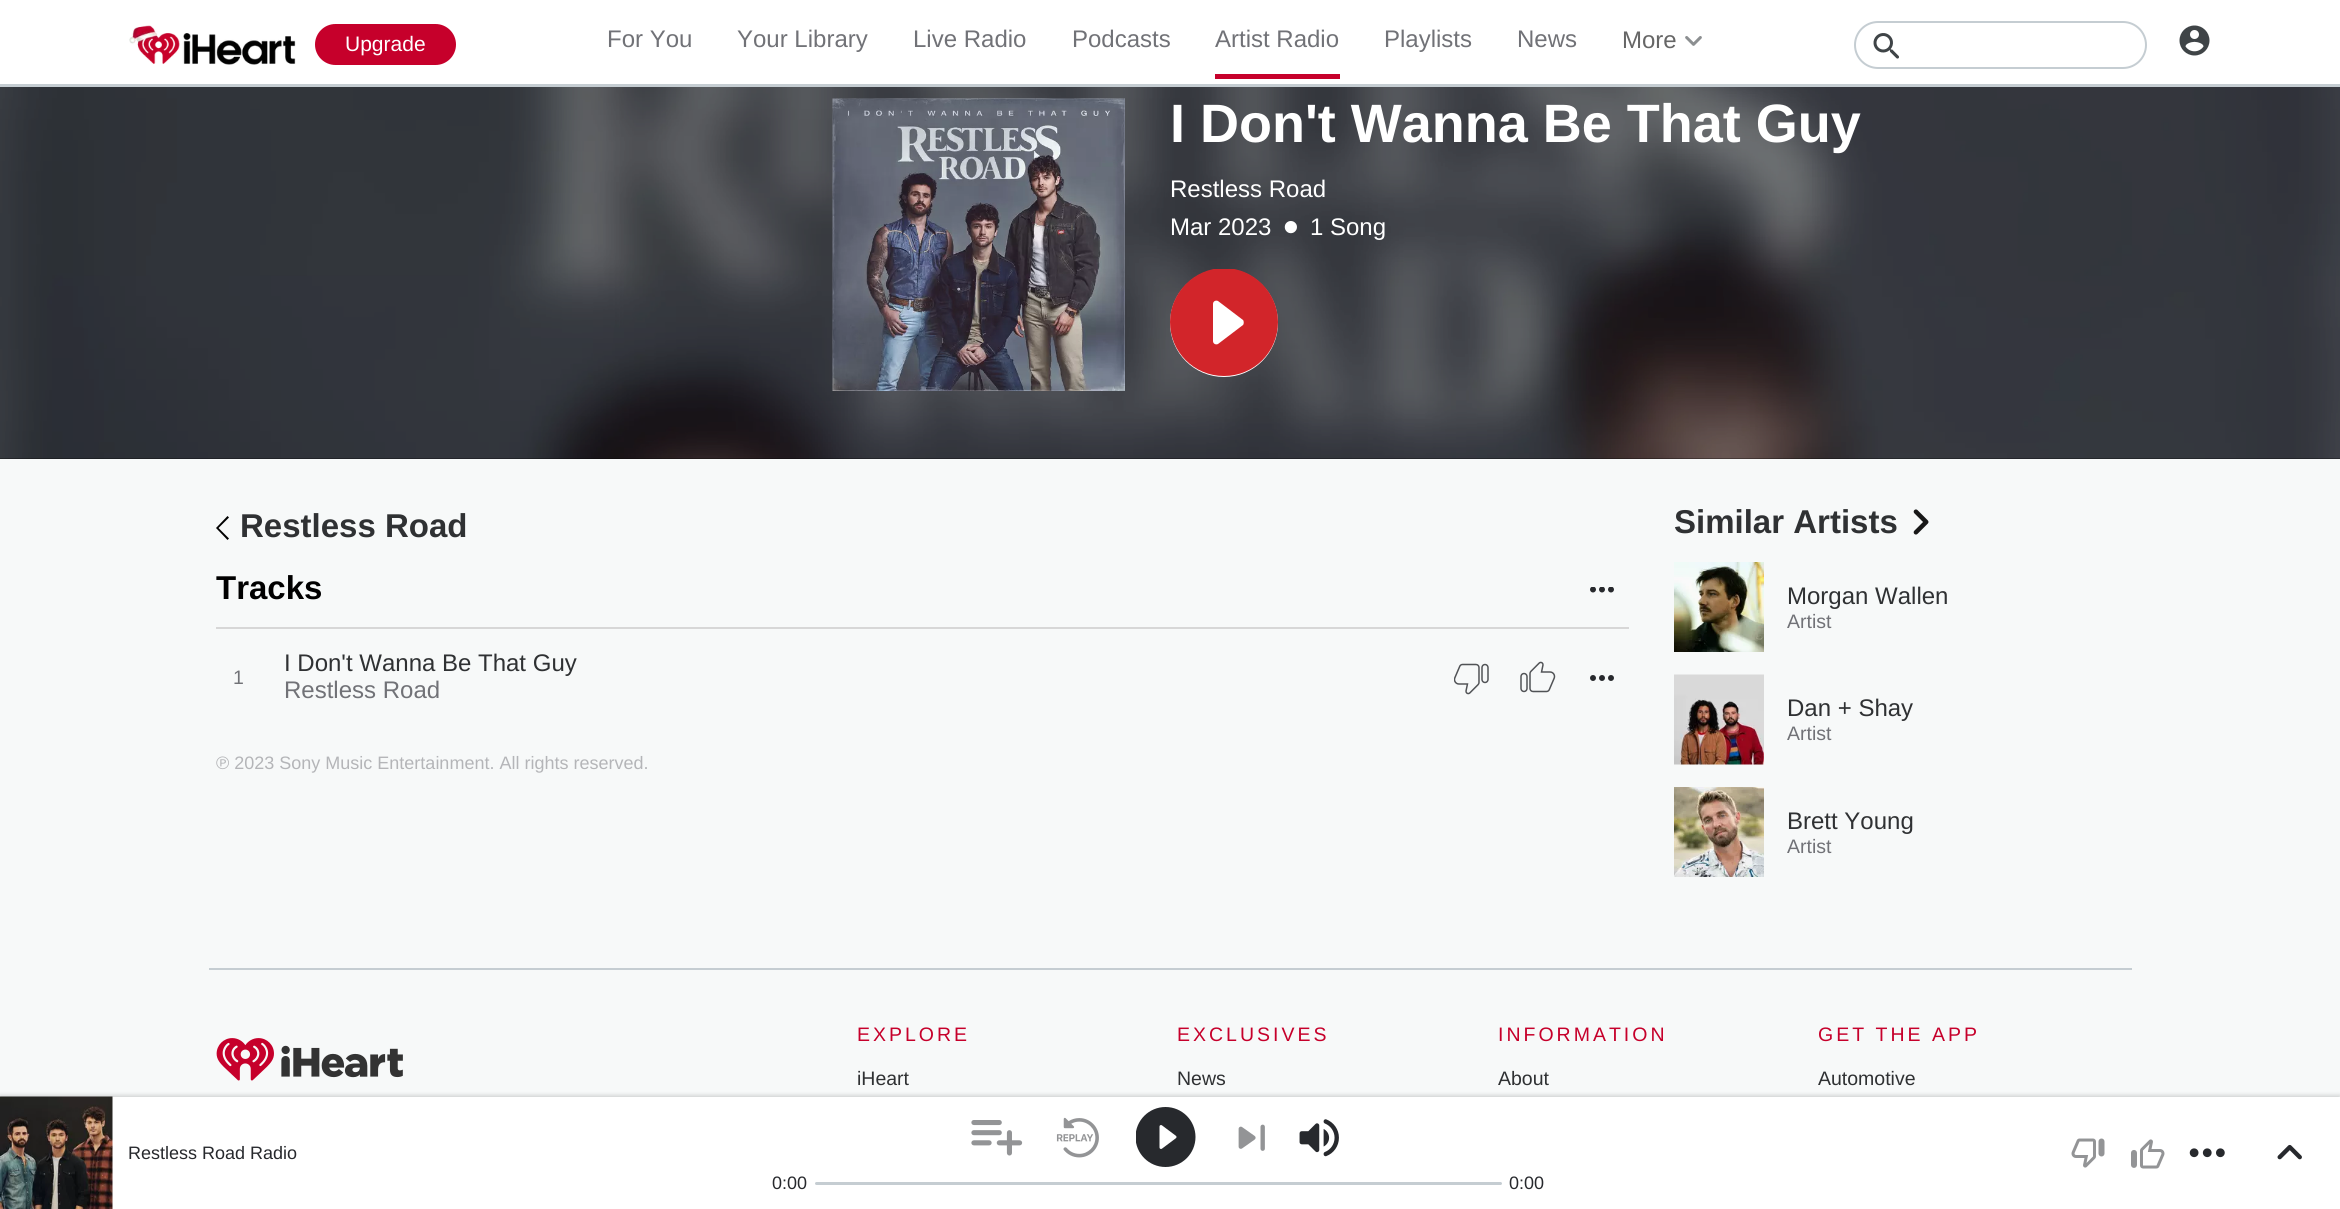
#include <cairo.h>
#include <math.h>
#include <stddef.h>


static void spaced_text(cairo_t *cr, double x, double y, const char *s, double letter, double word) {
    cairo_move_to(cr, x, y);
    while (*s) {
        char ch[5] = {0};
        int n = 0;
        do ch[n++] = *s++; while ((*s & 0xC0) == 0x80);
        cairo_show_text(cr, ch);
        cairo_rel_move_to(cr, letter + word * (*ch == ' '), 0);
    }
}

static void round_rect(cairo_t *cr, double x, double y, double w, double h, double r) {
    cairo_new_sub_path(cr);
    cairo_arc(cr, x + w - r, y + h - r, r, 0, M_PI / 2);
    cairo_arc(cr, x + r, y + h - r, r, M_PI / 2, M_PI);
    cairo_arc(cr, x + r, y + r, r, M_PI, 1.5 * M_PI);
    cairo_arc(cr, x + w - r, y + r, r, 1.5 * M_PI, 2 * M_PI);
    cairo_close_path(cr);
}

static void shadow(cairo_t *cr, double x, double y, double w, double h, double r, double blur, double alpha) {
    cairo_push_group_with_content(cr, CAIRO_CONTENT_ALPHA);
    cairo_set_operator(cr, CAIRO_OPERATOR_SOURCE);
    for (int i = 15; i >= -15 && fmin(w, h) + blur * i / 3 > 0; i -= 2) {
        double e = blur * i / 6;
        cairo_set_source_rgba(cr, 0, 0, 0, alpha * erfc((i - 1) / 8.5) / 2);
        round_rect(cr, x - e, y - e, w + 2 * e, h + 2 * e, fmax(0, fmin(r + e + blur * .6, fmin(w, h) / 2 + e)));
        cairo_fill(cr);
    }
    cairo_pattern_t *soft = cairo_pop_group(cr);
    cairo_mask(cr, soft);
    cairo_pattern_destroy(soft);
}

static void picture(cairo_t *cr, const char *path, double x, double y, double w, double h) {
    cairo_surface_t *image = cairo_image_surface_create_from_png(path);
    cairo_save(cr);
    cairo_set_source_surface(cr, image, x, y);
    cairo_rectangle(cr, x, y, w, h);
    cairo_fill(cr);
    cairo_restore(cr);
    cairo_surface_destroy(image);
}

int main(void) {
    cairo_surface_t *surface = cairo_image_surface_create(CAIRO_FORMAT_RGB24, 2340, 1209);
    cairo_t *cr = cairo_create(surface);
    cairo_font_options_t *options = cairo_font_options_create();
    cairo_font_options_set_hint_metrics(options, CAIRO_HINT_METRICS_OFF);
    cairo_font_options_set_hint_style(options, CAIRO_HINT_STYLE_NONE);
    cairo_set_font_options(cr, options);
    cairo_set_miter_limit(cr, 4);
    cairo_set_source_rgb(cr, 0, 0, 0);
    cairo_paint(cr);
    cairo_set_source_rgb(cr, 1, 1, 1);
    cairo_rectangle(cr, 0, 0, 2340, 84);
    cairo_fill(cr);
    cairo_set_source_rgb(cr, 0.773, 0.804, 0.824);
    cairo_rectangle(cr, 0, 84, 2340, 3);
    cairo_fill(cr);
    picture(cr, "img1.png", 129, 25, 167, 40);
    cairo_set_source_rgb(cr, 0.776, 0, 0.169);
    round_rect(cr, 315, 24, 141, 41, 20.5);
    cairo_fill(cr);
    cairo_select_font_face(cr, "Liberation Sans", CAIRO_FONT_SLANT_NORMAL, CAIRO_FONT_WEIGHT_NORMAL);
    cairo_set_font_size(cr, 21);
    cairo_set_source_rgb(cr, 1, 1, 1);
    cairo_move_to(cr, 345, 51);
    cairo_show_text(cr, "Upgrade");
    cairo_set_font_size(cr, 24);
    cairo_set_source_rgb(cr, 0.443, 0.447, 0.467);
    cairo_move_to(cr, 607, 47);
    cairo_show_text(cr, "For You");
    cairo_move_to(cr, 737, 47);
    cairo_show_text(cr, "Your Library");
    cairo_move_to(cr, 913, 47);
    cairo_show_text(cr, "Live Radio");
    cairo_move_to(cr, 1072, 47);
    cairo_show_text(cr, "Podcasts");
    cairo_move_to(cr, 1215, 47);
    cairo_show_text(cr, "Artist Radio");
    cairo_set_source_rgb(cr, 0.776, 0, 0.169);
    cairo_rectangle(cr, 1215, 74, 125, 5);
    cairo_fill(cr);
    cairo_set_source_rgb(cr, 0.443, 0.447, 0.467);
    cairo_move_to(cr, 1384, 47);
    cairo_show_text(cr, "Playlists");
    cairo_move_to(cr, 1517, 47);
    cairo_show_text(cr, "News");
    cairo_set_source_rgb(cr, 0.4, 0.4, 0.4);
    cairo_move_to(cr, 1622, 48);
    cairo_show_text(cr, "More");
    picture(cr, "img2.png", 1685, 36, 17, 10);
    round_rect(cr, 1855, 22, 291, 46, 23);
    cairo_set_source_rgb(cr, 0.773, 0.804, 0.824);
    cairo_stroke(cr);
    picture(cr, "img3.png", 1873, 33, 26, 26);
    picture(cr, "img4.png", 2179, 25, 31, 31);
    picture(cr, "img5.png", 0, 87, 2340, 372);
    picture(cr, "img6.png", 832, 98, 293, 293);
    cairo_select_font_face(cr, "Liberation Sans", CAIRO_FONT_SLANT_NORMAL, CAIRO_FONT_WEIGHT_BOLD);
    cairo_set_font_size(cr, 54);
    cairo_set_source_rgb(cr, 1, 1, 1);
    cairo_move_to(cr, 1170, 142);
    cairo_show_text(cr, "I Don't Wanna Be That Guy");
    cairo_select_font_face(cr, "Liberation Sans", CAIRO_FONT_SLANT_NORMAL, CAIRO_FONT_WEIGHT_NORMAL);
    cairo_set_font_size(cr, 24);
    cairo_move_to(cr, 1170, 197);
    cairo_show_text(cr, "Restless Road");
    cairo_move_to(cr, 1170, 235);
    cairo_show_text(cr, "Mar 2023");
    cairo_set_font_size(cr, 45);
    cairo_move_to(cr, 1283, 242);
    cairo_show_text(cr, "•");
    cairo_set_font_size(cr, 24);
    cairo_move_to(cr, 1310, 235);
    cairo_show_text(cr, "1 Song");
    cairo_new_path(cr);
    cairo_arc(cr, 1224, 323, 54, 0, 2 * M_PI);
    cairo_fill(cr);
    cairo_save(cr);
    cairo_rectangle(cr, 1170, 269, 108, 108);
    cairo_clip(cr);
    cairo_set_source_rgb(cr, 0.824, 0.145, 0.165);
    cairo_new_path(cr);
    cairo_move_to(cr, 1224, 268);
    cairo_curve_to(cr, 1194, 268, 1170, 293, 1170, 322);
    cairo_curve_to(cr, 1170, 352, 1194, 376, 1224, 376);
    cairo_curve_to(cr, 1254, 376, 1278, 352, 1278, 322);
    cairo_curve_to(cr, 1278, 293, 1254, 268, 1224, 268);
    cairo_close_path(cr);
    cairo_move_to(cr, 1213, 341);
    cairo_line_to(cr, 1213, 304);
    cairo_curve_to(cr, 1213, 301, 1216, 300, 1218, 301);
    cairo_line_to(cr, 1243, 320);
    cairo_curve_to(cr, 1244, 321, 1244, 324, 1243, 325);
    cairo_line_to(cr, 1218, 344);
    cairo_curve_to(cr, 1216, 345, 1213, 344, 1213, 341);
    cairo_close_path(cr);
    cairo_fill(cr);
    cairo_restore(cr);
    cairo_set_source_rgb(cr, 0.965, 0.973, 0.976);
    cairo_rectangle(cr, 0, 459, 2340, 638);
    cairo_fill(cr);
    cairo_set_source_rgb(cr, 0, 0, 0);
    cairo_new_path(cr);
    cairo_move_to(cr, 227.5, 516);
    cairo_line_to(cr, 216, 528);
    cairo_line_to(cr, 227.5, 540);
    cairo_line_to(cr, 229, 538.5);
    cairo_line_to(cr, 218.5, 528);
    cairo_line_to(cr, 229, 517.5);
    cairo_close_path(cr);
    cairo_fill(cr);
    cairo_select_font_face(cr, "Liberation Sans", CAIRO_FONT_SLANT_NORMAL, CAIRO_FONT_WEIGHT_BOLD);
    cairo_set_font_size(cr, 33);
    cairo_set_source_rgb(cr, 0.184, 0.192, 0.2);
    cairo_move_to(cr, 240, 537);
    cairo_show_text(cr, "Restless Road");
    cairo_set_source_rgb(cr, 0.843, 0.843, 0.843);
    cairo_rectangle(cr, 216, 627, 1413, 2);
    cairo_fill(cr);
    cairo_set_source_rgb(cr, 0, 0, 0);
    cairo_move_to(cr, 216, 599);
    cairo_show_text(cr, "Tracks");
    picture(cr, "img7.png", 1590, 587, 24, 6);
    cairo_select_font_face(cr, "Liberation Sans", CAIRO_FONT_SLANT_NORMAL, CAIRO_FONT_WEIGHT_NORMAL);
    cairo_set_font_size(cr, 19.5);
    cairo_set_source_rgb(cr, 0.443, 0.447, 0.467);
    cairo_move_to(cr, 233, 684);
    cairo_show_text(cr, "1");
    cairo_set_font_size(cr, 24);
    cairo_set_source_rgb(cr, 0.184, 0.192, 0.2);
    cairo_move_to(cr, 284, 671);
    cairo_show_text(cr, "I Don't Wanna Be That Guy");
    cairo_set_source_rgb(cr, 0.443, 0.447, 0.467);
    cairo_move_to(cr, 284, 698);
    cairo_show_text(cr, "Restless Road");
    picture(cr, "img8.png", 1454, 663, 35, 32);
    picture(cr, "img9.png", 1520, 661, 36, 32);
    picture(cr, "img10.png", 1590, 675, 24, 6);
    cairo_set_font_size(cr, 18);
    cairo_set_source_rgb(cr, 0.706, 0.71, 0.722);
    cairo_move_to(cr, 216, 769);
    cairo_show_text(cr, "℗ 2023 Sony Music Entertainment. All rights reserved.");
    cairo_select_font_face(cr, "Liberation Sans", CAIRO_FONT_SLANT_NORMAL, CAIRO_FONT_WEIGHT_BOLD);
    cairo_set_font_size(cr, 33);
    cairo_set_source_rgb(cr, 0.184, 0.192, 0.2);
    cairo_move_to(cr, 1674, 533);
    cairo_show_text(cr, "Similar Artists");
    picture(cr, "img11.png", 1913, 509, 16, 26);
    picture(cr, "img12.png", 1674, 562, 90, 90);
    cairo_select_font_face(cr, "Liberation Sans", CAIRO_FONT_SLANT_NORMAL, CAIRO_FONT_WEIGHT_NORMAL);
    cairo_set_font_size(cr, 24);
    cairo_move_to(cr, 1787, 604);
    cairo_show_text(cr, "Morgan Wallen");
    cairo_set_font_size(cr, 19.5);
    cairo_set_source_rgb(cr, 0.443, 0.447, 0.467);
    cairo_move_to(cr, 1787, 628);
    cairo_show_text(cr, "Artist");
    picture(cr, "img13.png", 1674, 674, 90, 91);
    cairo_set_font_size(cr, 24);
    cairo_set_source_rgb(cr, 0.184, 0.192, 0.2);
    cairo_move_to(cr, 1787, 716);
    cairo_show_text(cr, "Dan + Shay");
    cairo_set_font_size(cr, 19.5);
    cairo_set_source_rgb(cr, 0.443, 0.447, 0.467);
    cairo_move_to(cr, 1787, 740);
    cairo_show_text(cr, "Artist");
    picture(cr, "img14.png", 1674, 787, 90, 90);
    cairo_set_font_size(cr, 24);
    cairo_set_source_rgb(cr, 0.184, 0.192, 0.2);
    cairo_move_to(cr, 1787, 829);
    cairo_show_text(cr, "Brett Young");
    cairo_set_font_size(cr, 19.5);
    cairo_set_source_rgb(cr, 0.443, 0.447, 0.467);
    cairo_move_to(cr, 1787, 853);
    cairo_show_text(cr, "Artist");
    cairo_set_source_rgb(cr, 0.773, 0.804, 0.824);
    cairo_rectangle(cr, 209, 968, 1923, 2);
    cairo_fill(cr);
    picture(cr, "img15.png", 216, 1038, 187, 43);
    cairo_set_source_rgb(cr, 0.776, 0, 0.169);
    spaced_text(cr, 857, 1041, "EXPLORE", 3, 0);
    cairo_set_source_rgb(cr, 0.184, 0.192, 0.2);
    cairo_move_to(cr, 857, 1085);
    cairo_show_text(cr, "iHeart");
    cairo_set_source_rgb(cr, 0.776, 0, 0.169);
    spaced_text(cr, 1177, 1041, "EXCLUSIVES", 3, 0);
    cairo_set_source_rgb(cr, 0.184, 0.192, 0.2);
    cairo_move_to(cr, 1177, 1085);
    cairo_show_text(cr, "News");
    cairo_set_source_rgb(cr, 0.776, 0, 0.169);
    spaced_text(cr, 1498, 1041, "INFORMATION", 3, 0);
    cairo_set_source_rgb(cr, 0.184, 0.192, 0.2);
    cairo_move_to(cr, 1498, 1085);
    cairo_show_text(cr, "About");
    cairo_set_source_rgb(cr, 0.776, 0, 0.169);
    spaced_text(cr, 1818, 1041, "GET THE APP", 3, 0);
    cairo_set_source_rgb(cr, 0.184, 0.192, 0.2);
    cairo_move_to(cr, 1818, 1085);
    cairo_show_text(cr, "Automotive");
    cairo_set_source_rgb(cr, 0, 0, 0);
    shadow(cr, 0, 1095, 2340, 113, 0, 2, 0.15);
    cairo_set_source_rgb(cr, 1, 1, 1);
    cairo_rectangle(cr, 112, 1097, 2228, 112);
    cairo_fill(cr);
    picture(cr, "img16.png", 0, 1096, 113, 113);
    cairo_set_font_size(cr, 18);
    cairo_set_source_rgb(cr, 0.153, 0.161, 0.176);
    cairo_move_to(cr, 128, 1159);
    cairo_show_text(cr, "Restless Road Radio");
    picture(cr, "img17.png", 2071, 1138, 34, 30);
    picture(cr, "img18.png", 2131, 1139, 34, 30);
    picture(cr, "img19.png", 2189, 1148, 36, 10);
    picture(cr, "img20.png", 2277, 1144, 25, 16);
    picture(cr, "img21.png", 971, 1120, 52, 36);
    picture(cr, "img22.png", 1056, 1117, 43, 41);
    picture(cr, "img23.png", 1136, 1107, 60, 60);
    picture(cr, "img24.png", 1238, 1124, 27, 27);
    picture(cr, "img25.png", 1299, 1119, 40, 38);
    cairo_move_to(cr, 772, 1189);
    cairo_show_text(cr, "0:00");
    cairo_set_source_rgb(cr, 0.773, 0.804, 0.824);
    round_rect(cr, 815, 1182, 687, 3, 1.5);
    cairo_fill(cr);
    cairo_set_source_rgb(cr, 0.153, 0.161, 0.176);
    cairo_move_to(cr, 1509, 1189);
    cairo_show_text(cr, "0:00");
    cairo_surface_write_to_png(surface, "page.png");
    cairo_font_options_destroy(options);
    cairo_destroy(cr);
    cairo_surface_destroy(surface);
    return 0;
}
